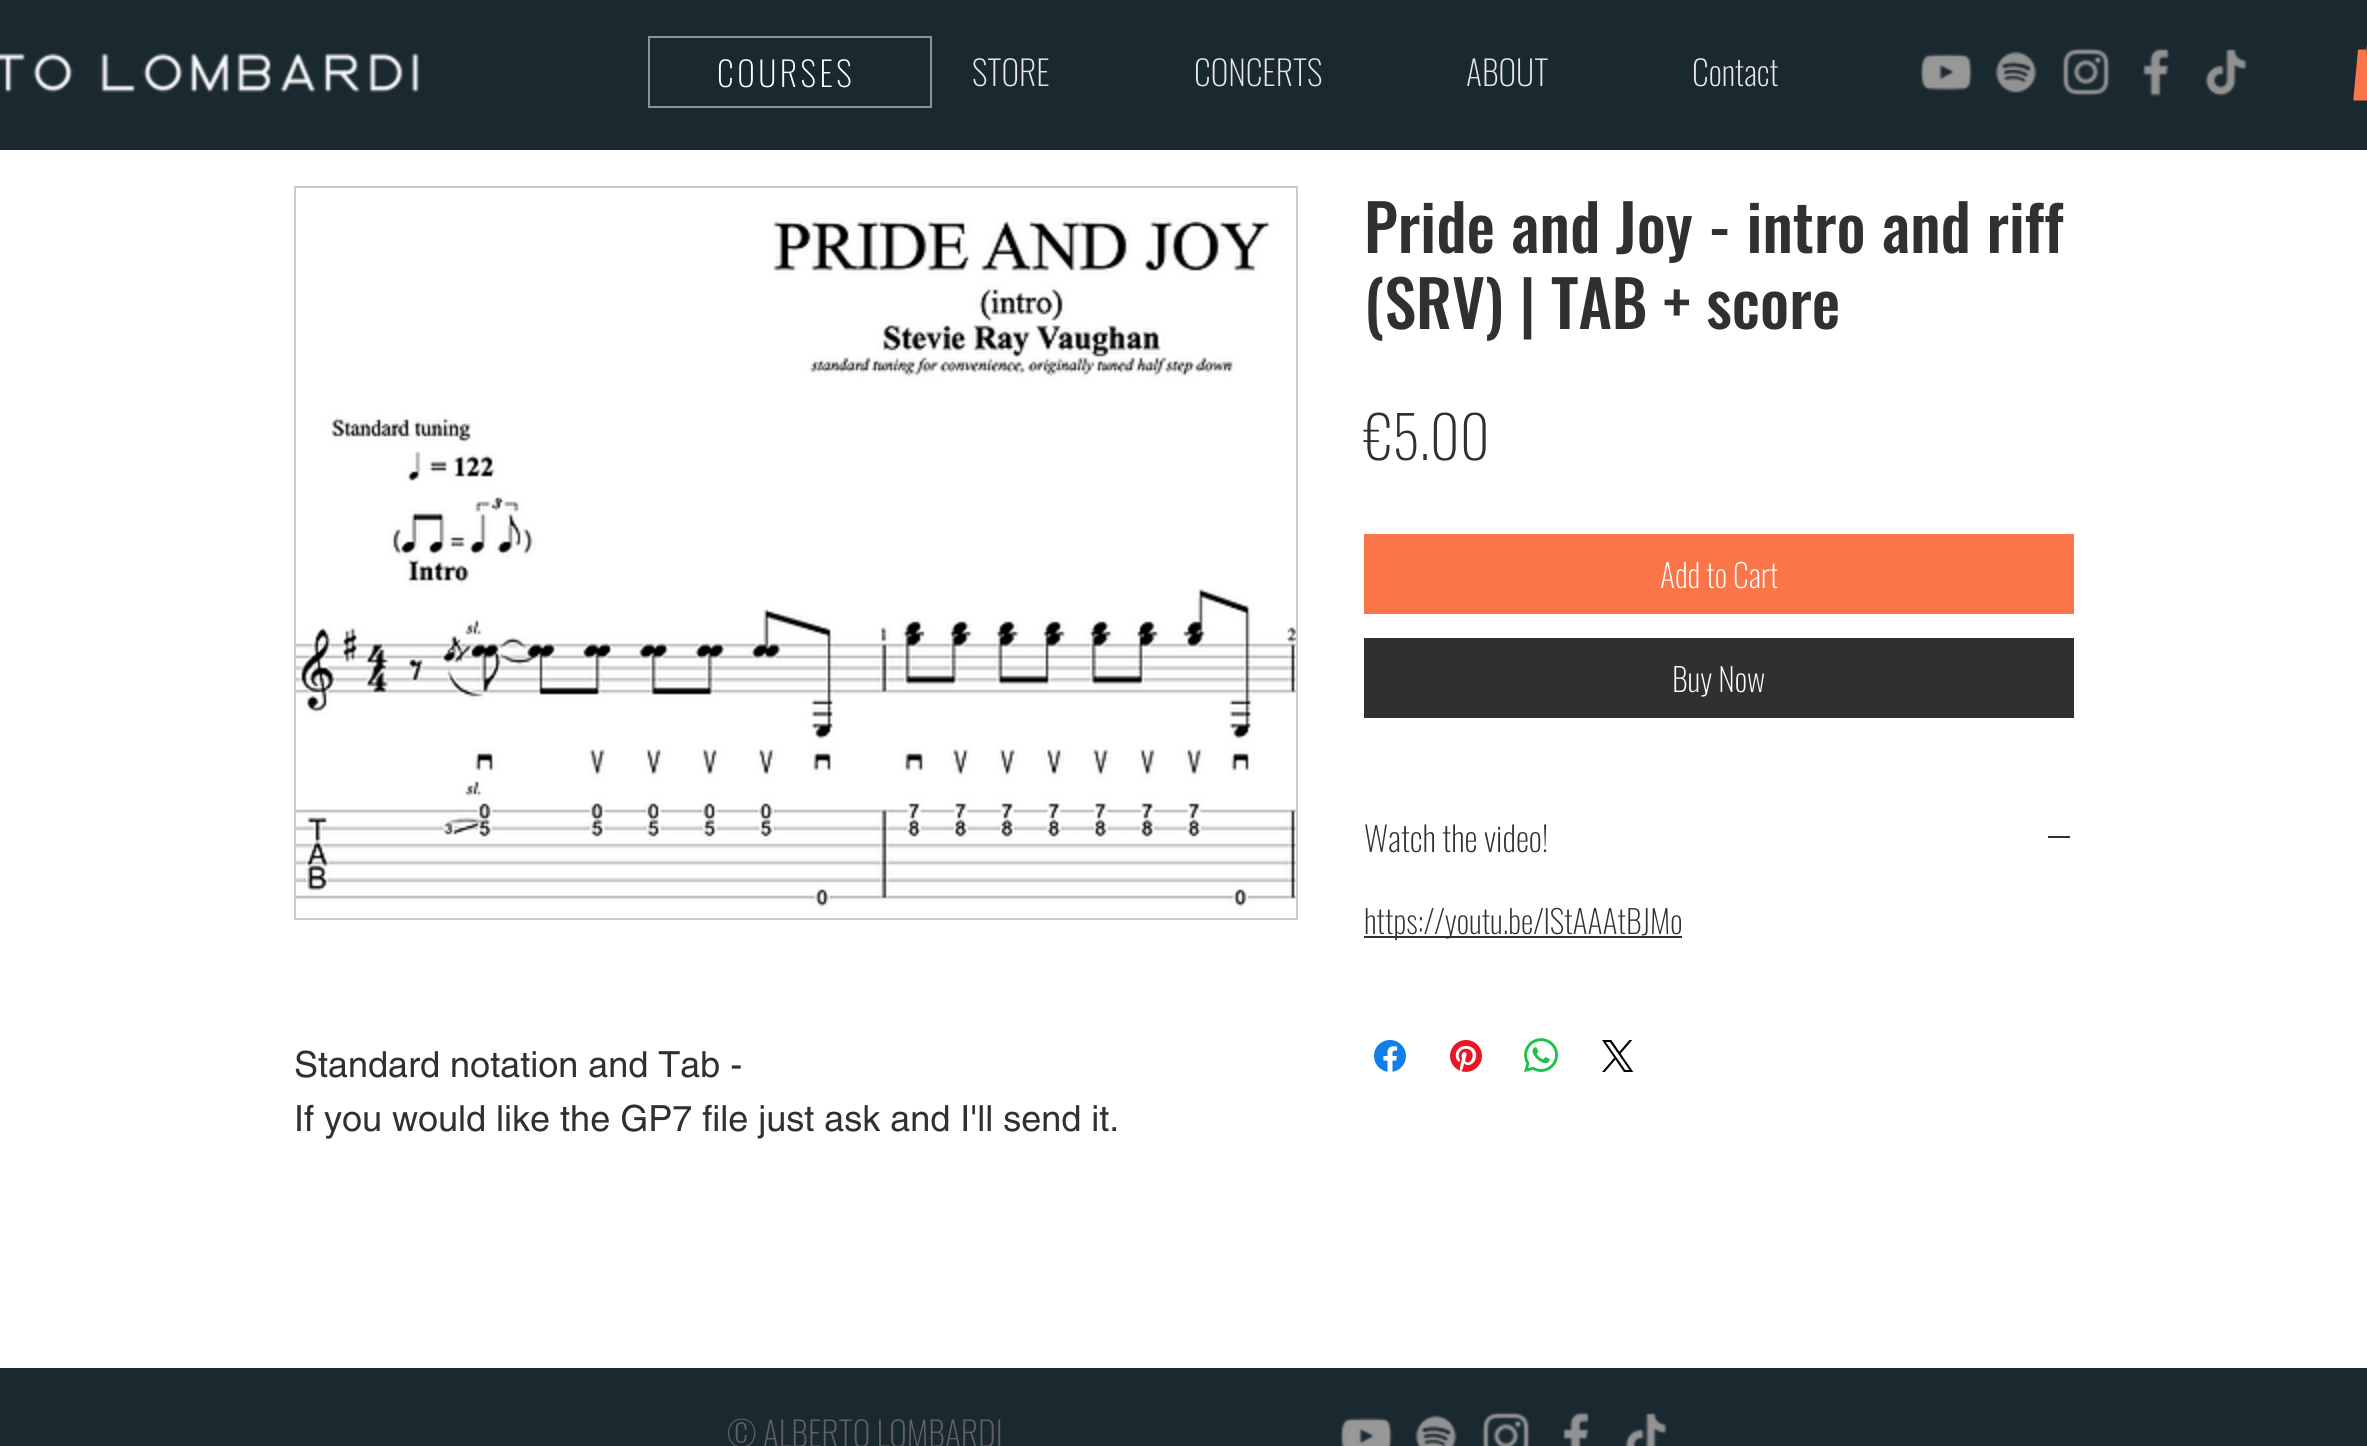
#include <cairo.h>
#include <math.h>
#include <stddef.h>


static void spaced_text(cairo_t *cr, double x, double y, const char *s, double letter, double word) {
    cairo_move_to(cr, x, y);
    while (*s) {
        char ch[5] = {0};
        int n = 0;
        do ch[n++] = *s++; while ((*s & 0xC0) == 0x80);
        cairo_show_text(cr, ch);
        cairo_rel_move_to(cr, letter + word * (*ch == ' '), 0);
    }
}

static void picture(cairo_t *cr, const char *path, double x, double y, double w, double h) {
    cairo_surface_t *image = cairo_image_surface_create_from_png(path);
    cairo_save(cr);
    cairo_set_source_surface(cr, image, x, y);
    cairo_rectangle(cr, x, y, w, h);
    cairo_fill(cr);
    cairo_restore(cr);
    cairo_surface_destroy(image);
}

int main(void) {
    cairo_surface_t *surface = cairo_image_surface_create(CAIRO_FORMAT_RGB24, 2367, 1446);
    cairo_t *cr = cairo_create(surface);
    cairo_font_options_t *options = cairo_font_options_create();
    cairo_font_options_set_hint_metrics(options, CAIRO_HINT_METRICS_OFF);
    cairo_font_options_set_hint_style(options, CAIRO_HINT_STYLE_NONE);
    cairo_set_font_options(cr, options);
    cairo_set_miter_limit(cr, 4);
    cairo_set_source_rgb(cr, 1, 1, 1);
    cairo_paint(cr);
    cairo_set_source_rgb(cr, 0.102, 0.161, 0.188);
    cairo_rectangle(cr, 0, 0, 2367, 150);
    cairo_fill(cr);
    picture(cr, "img1.png", 0, 53, 419, 40);
    cairo_rectangle(cr, 649, 37, 282, 70);
    cairo_set_source_rgb(cr, 0.569, 0.569, 0.569);
    cairo_stroke(cr);
    cairo_select_font_face(cr, "Oswald ExtraLight", CAIRO_FONT_SLANT_NORMAL, CAIRO_FONT_WEIGHT_NORMAL);
    cairo_set_font_size(cr, 34);
    cairo_set_source_rgb(cr, 1, 1, 1);
    spaced_text(cr, 717, 87, "COURSES", 3.5, 0);
    cairo_set_source_rgb(cr, 0.906, 0.906, 0.906);
    cairo_move_to(cr, 972, 86);
    cairo_show_text(cr, "STORE");
    cairo_move_to(cr, 1194, 86);
    cairo_show_text(cr, "CONCERTS");
    cairo_move_to(cr, 1466, 86);
    cairo_show_text(cr, "ABOUT");
    cairo_move_to(cr, 1692, 86);
    cairo_show_text(cr, "Contact");
    picture(cr, "img2.png", 1920, 53, 53, 38);
    picture(cr, "img3.png", 1995, 51, 42, 43);
    picture(cr, "img4.png", 2061, 47, 49, 49);
    picture(cr, "img5.png", 2143, 47, 26, 50);
    picture(cr, "img6.png", 2205, 49, 42, 48);
    picture(cr, "img7.png", 2353, 45, 14, 56);
    cairo_select_font_face(cr, "Oswald Medium", CAIRO_FONT_SLANT_NORMAL, CAIRO_FONT_WEIGHT_NORMAL);
    cairo_set_font_size(cr, 64);
    cairo_set_source_rgb(cr, 0.188, 0.188, 0.188);
    cairo_move_to(cr, 1364, 253);
    cairo_show_text(cr, "Pride and Joy - intro and riff");
    cairo_move_to(cr, 1364, 329);
    cairo_show_text(cr, "(SRV) | TAB + score");
    cairo_select_font_face(cr, "Oswald ExtraLight", CAIRO_FONT_SLANT_NORMAL, CAIRO_FONT_WEIGHT_NORMAL);
    cairo_set_font_size(cr, 58);
    cairo_move_to(cr, 1364, 460);
    cairo_show_text(cr, "€5.00");
    cairo_set_source_rgb(cr, 0.98, 0.459, 0.282);
    cairo_rectangle(cr, 1364, 534, 710, 80);
    cairo_fill(cr);
    cairo_set_font_size(cr, 32);
    cairo_set_source_rgb(cr, 1, 1, 1);
    cairo_move_to(cr, 1660, 588);
    cairo_show_text(cr, "Add to Cart");
    cairo_set_source_rgb(cr, 0.188, 0.188, 0.188);
    cairo_rectangle(cr, 1364, 638, 710, 80);
    cairo_fill(cr);
    cairo_set_source_rgb(cr, 1, 1, 1);
    cairo_move_to(cr, 1672, 692);
    cairo_show_text(cr, "Buy Now");
    cairo_set_font_size(cr, 34);
    cairo_set_source_rgb(cr, 0.188, 0.188, 0.188);
    cairo_move_to(cr, 1364, 852);
    cairo_show_text(cr, "Watch the video!");
    cairo_rectangle(cr, 2048, 836, 22, 2);
    cairo_fill(cr);
    cairo_rectangle(cr, 1364, 936, 318, 2);
    cairo_fill(cr);
    cairo_set_font_size(cr, 32);
    cairo_move_to(cr, 1364, 934);
    cairo_show_text(cr, "https://youtu.be/lStAAAtBJMo");
    picture(cr, "img8.png", 1374, 1040, 32, 32);
    picture(cr, "img9.png", 1450, 1040, 32, 32);
    picture(cr, "img10.png", 1524, 1038, 34, 35);
    picture(cr, "img11.png", 1602, 1040, 32, 32);
    cairo_rectangle(cr, 295, 187, 1002, 732);
    cairo_set_source_rgb(cr, 0.8, 0.8, 0.8);
    cairo_stroke(cr);
    picture(cr, "img12.png", 296, 218, 1000, 692);
    cairo_select_font_face(cr, "helvetica", CAIRO_FONT_SLANT_NORMAL, CAIRO_FONT_WEIGHT_NORMAL);
    cairo_set_font_size(cr, 36);
    cairo_set_source_rgb(cr, 0.188, 0.188, 0.188);
    cairo_move_to(cr, 294, 1077);
    cairo_show_text(cr, "Standard notation and Tab -");
    cairo_move_to(cr, 294, 1131);
    cairo_show_text(cr, "If you would like the GP7 file just ask and I'll send it.");
    cairo_set_source_rgb(cr, 0.102, 0.161, 0.188);
    cairo_rectangle(cr, 0, 1368, 2367, 78);
    cairo_fill(cr);
    cairo_select_font_face(cr, "Oswald ExtraLight", CAIRO_FONT_SLANT_NORMAL, CAIRO_FONT_WEIGHT_NORMAL);
    cairo_set_font_size(cr, 34);
    cairo_set_source_rgb(cr, 0.38, 0.38, 0.38);
    cairo_move_to(cr, 727, 1447);
    cairo_show_text(cr, "© ALBERTO LOMBARDI");
    picture(cr, "img13.png", 1340, 1417, 53, 29);
    picture(cr, "img14.png", 1415, 1415, 42, 31);
    picture(cr, "img15.png", 1481, 1411, 49, 35);
    picture(cr, "img16.png", 1563, 1411, 26, 35);
    picture(cr, "img17.png", 1625, 1413, 42, 33);
    cairo_surface_write_to_png(surface, "page.png");
    cairo_font_options_destroy(options);
    cairo_destroy(cr);
    cairo_surface_destroy(surface);
    return 0;
}
